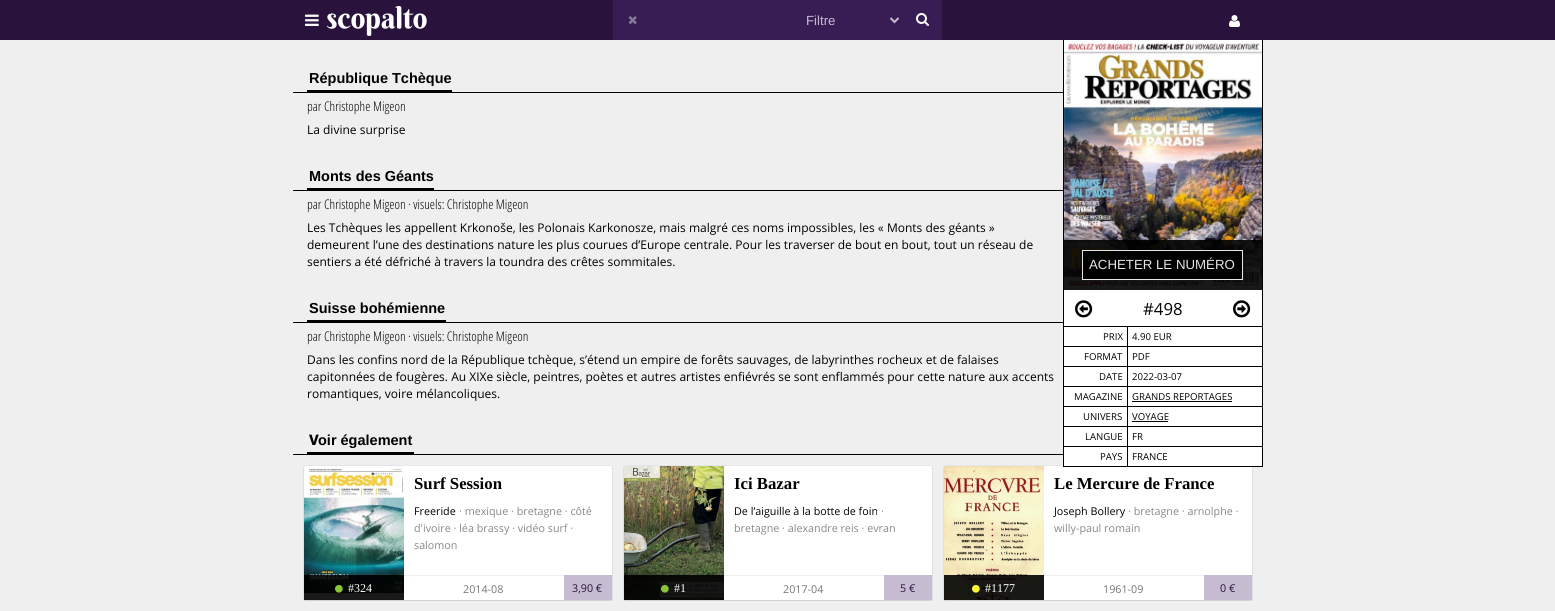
#include <cairo.h>
#include <math.h>
#include <stddef.h>


static void round_rect(cairo_t *cr, double x, double y, double w, double h, double r) {
    cairo_new_sub_path(cr);
    cairo_arc(cr, x + w - r, y + h - r, r, 0, M_PI / 2);
    cairo_arc(cr, x + r, y + h - r, r, M_PI / 2, M_PI);
    cairo_arc(cr, x + r, y + r, r, M_PI, 1.5 * M_PI);
    cairo_arc(cr, x + w - r, y + r, r, 1.5 * M_PI, 2 * M_PI);
    cairo_close_path(cr);
}

static void picture(cairo_t *cr, const char *path, double x, double y, double w, double h) {
    cairo_surface_t *image = cairo_image_surface_create_from_png(path);
    cairo_save(cr);
    cairo_set_source_surface(cr, image, x, y);
    cairo_rectangle(cr, x, y, w, h);
    cairo_fill(cr);
    cairo_restore(cr);
    cairo_surface_destroy(image);
}

int main(void) {
    cairo_surface_t *surface = cairo_image_surface_create(CAIRO_FORMAT_RGB24, 1555, 611);
    cairo_t *cr = cairo_create(surface);
    cairo_font_options_t *options = cairo_font_options_create();
    cairo_font_options_set_hint_metrics(options, CAIRO_HINT_METRICS_OFF);
    cairo_font_options_set_hint_style(options, CAIRO_HINT_STYLE_NONE);
    cairo_set_font_options(cr, options);
    cairo_set_miter_limit(cr, 4);
    cairo_set_source_rgb(cr, 0.937, 0.937, 0.937);
    cairo_paint(cr);
    cairo_set_source_rgb(cr, 0.161, 0.078, 0.239);
    cairo_rectangle(cr, 0, 0, 1555, 40);
    cairo_fill(cr);
    picture(cr, "img1.png", 305, 14, 14, 12);
    picture(cr, "img2.png", 326, 6, 101, 30);
    cairo_set_source_rgb(cr, 0.216, 0.114, 0.325);
    cairo_rectangle(cr, 613, 0, 329, 40);
    cairo_fill(cr);
    picture(cr, "img3.png", 628, 16, 9, 8);
    cairo_new_path(cr);
    cairo_move_to(cr, 890.5, 18);
    cairo_line_to(cr, 894.5, 22);
    cairo_line_to(cr, 898.5, 18);
    cairo_set_source_rgb(cr, 0.776, 0.737, 0.82);
    cairo_stroke(cr);
    cairo_select_font_face(cr, "Liberation Sans", CAIRO_FONT_SLANT_NORMAL, CAIRO_FONT_WEIGHT_NORMAL);
    cairo_set_font_size(cr, 13.25);
    cairo_move_to(cr, 806, 25);
    cairo_show_text(cr, "Filtre");
    picture(cr, "img4.png", 916, 13, 13, 13);
    picture(cr, "img5.png", 1229, 15, 11, 12);
    cairo_set_source_rgb(cr, 0, 0, 0);
    cairo_rectangle(cr, 293, 92, 770, 1);
    cairo_fill(cr);
    cairo_rectangle(cr, 307, 90, 145, 2);
    cairo_fill(cr);
    cairo_select_font_face(cr, "Liberation Sans", CAIRO_FONT_SLANT_NORMAL, CAIRO_FONT_WEIGHT_BOLD);
    cairo_set_font_size(cr, 14.5);
    cairo_move_to(cr, 309, 83);
    cairo_show_text(cr, "République Tchèque");
    cairo_select_font_face(cr, "Open Sans Light", CAIRO_FONT_SLANT_NORMAL, CAIRO_FONT_WEIGHT_NORMAL);
    cairo_set_font_size(cr, 13.25);
    cairo_move_to(cr, 307, 111);
    cairo_show_text(cr, "par Christophe Migeon");
    cairo_select_font_face(cr, "Open Sans", CAIRO_FONT_SLANT_NORMAL, CAIRO_FONT_WEIGHT_NORMAL);
    cairo_set_font_size(cr, 12);
    cairo_move_to(cr, 307, 134);
    cairo_show_text(cr, "La divine surprise");
    cairo_rectangle(cr, 293, 190, 770, 1);
    cairo_fill(cr);
    cairo_rectangle(cr, 307, 188, 127, 2);
    cairo_fill(cr);
    cairo_select_font_face(cr, "Liberation Sans", CAIRO_FONT_SLANT_NORMAL, CAIRO_FONT_WEIGHT_BOLD);
    cairo_set_font_size(cr, 14.5);
    cairo_move_to(cr, 309, 181);
    cairo_show_text(cr, "Monts des Géants");
    cairo_select_font_face(cr, "Open Sans Light", CAIRO_FONT_SLANT_NORMAL, CAIRO_FONT_WEIGHT_NORMAL);
    cairo_set_font_size(cr, 13.25);
    cairo_move_to(cr, 307, 209);
    cairo_show_text(cr, "par Christophe Migeon · visuels: Christophe Migeon");
    cairo_select_font_face(cr, "Open Sans", CAIRO_FONT_SLANT_NORMAL, CAIRO_FONT_WEIGHT_NORMAL);
    cairo_set_font_size(cr, 12);
    cairo_move_to(cr, 307, 232);
    cairo_show_text(cr, "Les Tchèques les appellent Krkonoše, les Polonais Karkonosze, mais malgré ces noms impossibles, les « Monts des géants »");
    cairo_move_to(cr, 307, 249);
    cairo_show_text(cr, "demeurent l’une des destinations nature les plus courues d’Europe centrale. Pour les traverser de bout en bout, tout un réseau de");
    cairo_move_to(cr, 307, 266);
    cairo_show_text(cr, "sentiers a été défriché à travers la toundra des crêtes sommitales.");
    cairo_rectangle(cr, 293, 322, 770, 1);
    cairo_fill(cr);
    cairo_rectangle(cr, 307, 320, 139, 2);
    cairo_fill(cr);
    cairo_select_font_face(cr, "Liberation Sans", CAIRO_FONT_SLANT_NORMAL, CAIRO_FONT_WEIGHT_BOLD);
    cairo_set_font_size(cr, 14.5);
    cairo_move_to(cr, 309, 313);
    cairo_show_text(cr, "Suisse bohémienne");
    cairo_select_font_face(cr, "Open Sans Light", CAIRO_FONT_SLANT_NORMAL, CAIRO_FONT_WEIGHT_NORMAL);
    cairo_set_font_size(cr, 13.25);
    cairo_move_to(cr, 307, 341);
    cairo_show_text(cr, "par Christophe Migeon · visuels: Christophe Migeon");
    cairo_select_font_face(cr, "Open Sans", CAIRO_FONT_SLANT_NORMAL, CAIRO_FONT_WEIGHT_NORMAL);
    cairo_set_font_size(cr, 12);
    cairo_move_to(cr, 307, 364);
    cairo_show_text(cr, "Dans les confins nord de la République tchèque, s’étend un empire de forêts sauvages, de labyrinthes rocheux et de falaises");
    cairo_move_to(cr, 307, 381);
    cairo_show_text(cr, "capitonnées de fougères. Au XIXe siècle, peintres, poètes et autres artistes enfiévrés se sont enflammés pour cette nature aux accents");
    cairo_move_to(cr, 307, 398);
    cairo_show_text(cr, "romantiques, voire mélancoliques.");
    picture(cr, "img6.png", 1064, 40, 198, 250);
    cairo_set_source_rgba(cr, 0, 0, 0, 0.9);
    cairo_rectangle(cr, 1064, 240, 198, 50);
    cairo_fill(cr);
    cairo_rectangle(cr, 1082.5, 250.5, 160, 29);
    cairo_fill_preserve(cr);
    cairo_set_source_rgb(cr, 0.902, 0.902, 0.902);
    cairo_set_line_width(cr, 1);
    cairo_stroke(cr);
    cairo_select_font_face(cr, "Liberation Sans", CAIRO_FONT_SLANT_NORMAL, CAIRO_FONT_WEIGHT_NORMAL);
    cairo_set_font_size(cr, 13.25);
    cairo_move_to(cr, 1089, 269);
    cairo_show_text(cr, "ACHETER LE NUMÉRO");
    cairo_set_source_rgb(cr, 1, 1, 1);
    cairo_rectangle(cr, 1064, 290, 198, 36);
    cairo_fill(cr);
    cairo_set_source_rgb(cr, 0, 0, 0);
    cairo_rectangle(cr, 1262, 40, 1, 286);
    cairo_fill(cr);
    cairo_rectangle(cr, 1063, 40, 1, 286);
    cairo_fill(cr);
    picture(cr, "img7.png", 1075, 300, 18, 18);
    cairo_select_font_face(cr, "Open Sans", CAIRO_FONT_SLANT_NORMAL, CAIRO_FONT_WEIGHT_NORMAL);
    cairo_set_font_size(cr, 16.75);
    cairo_move_to(cr, 1143, 315);
    cairo_show_text(cr, "#498");
    picture(cr, "img8.png", 1233, 300, 18, 18);
    cairo_set_source_rgb(cr, 1, 1, 1);
    cairo_rectangle(cr, 1064, 327, 63, 19);
    cairo_fill(cr);
    cairo_set_source_rgb(cr, 0, 0, 0);
    cairo_rectangle(cr, 1127, 326, 136, 1);
    cairo_fill(cr);
    cairo_rectangle(cr, 1127, 346, 136, 1);
    cairo_fill(cr);
    cairo_rectangle(cr, 1127, 366, 136, 1);
    cairo_fill(cr);
    cairo_rectangle(cr, 1127, 386, 136, 1);
    cairo_fill(cr);
    cairo_rectangle(cr, 1127, 406, 136, 1);
    cairo_fill(cr);
    cairo_rectangle(cr, 1127, 426, 136, 1);
    cairo_fill(cr);
    cairo_rectangle(cr, 1127, 446, 136, 1);
    cairo_fill(cr);
    cairo_rectangle(cr, 1262, 446, 1, 21);
    cairo_fill(cr);
    cairo_set_source_rgb(cr, 1, 1, 1);
    round_rect(cr, 943, 465, 310, 136, 3);
    cairo_fill(cr);
    picture(cr, "img13.png", 944, 466, 100, 135);
    cairo_new_path(cr);
    cairo_move_to(cr, 944, 466);
    cairo_line_to(cr, 946, 465.5);
    cairo_line_to(cr, 1250, 465.5);
    cairo_line_to(cr, 1252, 466);
    cairo_set_source_rgb(cr, 0.898, 0.902, 0.914);
    cairo_stroke(cr);
    cairo_new_path(cr);
    cairo_move_to(cr, 1252, 466);
    cairo_line_to(cr, 1252.5, 468);
    cairo_line_to(cr, 1252.5, 576.5);
    cairo_line_to(cr, 1252.5, 598);
    cairo_line_to(cr, 1252, 600);
    cairo_set_source_rgb(cr, 0.875, 0.878, 0.894);
    cairo_stroke(cr);
    cairo_set_source_rgb(cr, 0, 0, 0);
    cairo_rectangle(cr, 1127, 466, 136, 1);
    cairo_fill(cr);
    cairo_rectangle(cr, 1127, 446, 1, 21);
    cairo_fill(cr);
    cairo_rectangle(cr, 1063, 446, 65, 1);
    cairo_fill(cr);
    cairo_rectangle(cr, 1127, 426, 1, 21);
    cairo_fill(cr);
    cairo_rectangle(cr, 1063, 426, 65, 1);
    cairo_fill(cr);
    cairo_rectangle(cr, 1127, 406, 1, 21);
    cairo_fill(cr);
    cairo_rectangle(cr, 1063, 406, 65, 1);
    cairo_fill(cr);
    cairo_rectangle(cr, 1127, 386, 1, 21);
    cairo_fill(cr);
    cairo_rectangle(cr, 1063, 386, 65, 1);
    cairo_fill(cr);
    cairo_rectangle(cr, 1127, 366, 1, 21);
    cairo_fill(cr);
    cairo_rectangle(cr, 1063, 366, 65, 1);
    cairo_fill(cr);
    cairo_rectangle(cr, 1127, 346, 1, 21);
    cairo_fill(cr);
    cairo_rectangle(cr, 1063, 346, 65, 1);
    cairo_fill(cr);
    cairo_rectangle(cr, 1127, 326, 1, 21);
    cairo_fill(cr);
    cairo_rectangle(cr, 1063, 326, 65, 1);
    cairo_fill(cr);
    cairo_rectangle(cr, 1063, 466, 65, 1);
    cairo_fill(cr);
    cairo_rectangle(cr, 1063, 446, 1, 21);
    cairo_fill(cr);
    cairo_rectangle(cr, 1063, 426, 1, 21);
    cairo_fill(cr);
    cairo_rectangle(cr, 1063, 406, 1, 21);
    cairo_fill(cr);
    cairo_rectangle(cr, 1063, 386, 1, 21);
    cairo_fill(cr);
    cairo_rectangle(cr, 1063, 366, 1, 21);
    cairo_fill(cr);
    cairo_rectangle(cr, 1063, 346, 1, 21);
    cairo_fill(cr);
    cairo_rectangle(cr, 1063, 326, 1, 21);
    cairo_fill(cr);
    cairo_set_font_size(cr, 9.6);
    cairo_move_to(cr, 1103, 340);
    cairo_show_text(cr, "PRIX");
    cairo_set_source_rgb(cr, 1, 1, 1);
    cairo_rectangle(cr, 1128, 327, 134, 19);
    cairo_fill(cr);
    cairo_set_source_rgb(cr, 0, 0, 0);
    cairo_rectangle(cr, 1262, 426, 1, 21);
    cairo_fill(cr);
    cairo_rectangle(cr, 1262, 406, 1, 21);
    cairo_fill(cr);
    cairo_rectangle(cr, 1262, 386, 1, 21);
    cairo_fill(cr);
    cairo_rectangle(cr, 1262, 366, 1, 21);
    cairo_fill(cr);
    cairo_rectangle(cr, 1262, 346, 1, 21);
    cairo_fill(cr);
    cairo_rectangle(cr, 1262, 326, 1, 21);
    cairo_fill(cr);
    cairo_move_to(cr, 1132, 340);
    cairo_show_text(cr, "4.90 EUR");
    cairo_set_source_rgb(cr, 1, 1, 1);
    cairo_rectangle(cr, 1064, 347, 63, 19);
    cairo_fill(cr);
    cairo_set_source_rgb(cr, 0, 0, 0);
    cairo_move_to(cr, 1084, 360);
    cairo_show_text(cr, "FORMAT");
    cairo_set_source_rgb(cr, 1, 1, 1);
    cairo_rectangle(cr, 1128, 347, 134, 19);
    cairo_fill(cr);
    cairo_set_source_rgb(cr, 0, 0, 0);
    cairo_move_to(cr, 1132, 360);
    cairo_show_text(cr, "PDF");
    cairo_set_source_rgb(cr, 1, 1, 1);
    cairo_rectangle(cr, 1064, 367, 63, 19);
    cairo_fill(cr);
    cairo_set_source_rgb(cr, 0, 0, 0);
    cairo_move_to(cr, 1099, 380);
    cairo_show_text(cr, "DATE");
    cairo_set_source_rgb(cr, 1, 1, 1);
    cairo_rectangle(cr, 1128, 367, 134, 19);
    cairo_fill(cr);
    cairo_set_source_rgb(cr, 0, 0, 0);
    cairo_move_to(cr, 1132, 380);
    cairo_show_text(cr, "2022-03-07");
    cairo_set_source_rgb(cr, 1, 1, 1);
    cairo_rectangle(cr, 1064, 387, 63, 19);
    cairo_fill(cr);
    cairo_set_source_rgb(cr, 0, 0, 0);
    cairo_move_to(cr, 1074, 400);
    cairo_show_text(cr, "MAGAZINE");
    cairo_set_source_rgb(cr, 1, 1, 1);
    cairo_rectangle(cr, 1128, 387, 134, 19);
    cairo_fill(cr);
    cairo_set_source_rgb(cr, 0, 0, 0);
    cairo_move_to(cr, 1132, 400);
    cairo_show_text(cr, "GRANDS REPORTAGES");
    cairo_rectangle(cr, 1132, 401, 100, 1);
    cairo_fill(cr);
    cairo_set_source_rgb(cr, 1, 1, 1);
    cairo_rectangle(cr, 1064, 407, 63, 19);
    cairo_fill(cr);
    cairo_set_source_rgb(cr, 0, 0, 0);
    cairo_move_to(cr, 1083, 420);
    cairo_show_text(cr, "UNIVERS");
    cairo_set_source_rgb(cr, 1, 1, 1);
    cairo_rectangle(cr, 1128, 407, 134, 19);
    cairo_fill(cr);
    cairo_set_source_rgb(cr, 0, 0, 0);
    cairo_move_to(cr, 1132, 420);
    cairo_show_text(cr, "VOYAGE");
    cairo_rectangle(cr, 1132, 421, 36, 1);
    cairo_fill(cr);
    cairo_set_source_rgb(cr, 1, 1, 1);
    cairo_rectangle(cr, 1064, 427, 63, 19);
    cairo_fill(cr);
    cairo_set_source_rgb(cr, 0, 0, 0);
    cairo_move_to(cr, 1085, 440);
    cairo_show_text(cr, "LANGUE");
    cairo_set_source_rgb(cr, 1, 1, 1);
    cairo_rectangle(cr, 1128, 427, 134, 19);
    cairo_fill(cr);
    cairo_set_source_rgb(cr, 0, 0, 0);
    cairo_move_to(cr, 1132, 440);
    cairo_show_text(cr, "FR");
    cairo_set_source_rgb(cr, 1, 1, 1);
    cairo_rectangle(cr, 1064, 447, 63, 19);
    cairo_fill(cr);
    cairo_set_source_rgb(cr, 0, 0, 0);
    cairo_move_to(cr, 1100, 460);
    cairo_show_text(cr, "PAYS");
    cairo_set_source_rgb(cr, 1, 1, 1);
    cairo_rectangle(cr, 1128, 447, 134, 19);
    cairo_fill(cr);
    cairo_set_source_rgb(cr, 0, 0, 0);
    cairo_move_to(cr, 1132, 460);
    cairo_show_text(cr, "FRANCE");
    cairo_rectangle(cr, 293, 454, 770, 1);
    cairo_fill(cr);
    cairo_rectangle(cr, 307, 452, 107, 2);
    cairo_fill(cr);
    cairo_select_font_face(cr, "Noto Sans ExtraBold", CAIRO_FONT_SLANT_NORMAL, CAIRO_FONT_WEIGHT_NORMAL);
    cairo_set_font_size(cr, 14.5);
    cairo_move_to(cr, 309, 445);
    cairo_show_text(cr, "V");
    cairo_select_font_face(cr, "Liberation Sans", CAIRO_FONT_SLANT_NORMAL, CAIRO_FONT_WEIGHT_BOLD);
    cairo_move_to(cr, 318, 445);
    cairo_show_text(cr, "oir également");
    cairo_set_source_rgb(cr, 1, 1, 1);
    round_rect(cr, 303, 465, 310, 136, 3);
    cairo_fill(cr);
    picture(cr, "img9.png", 304, 466, 100, 127);
    cairo_new_path(cr);
    cairo_move_to(cr, 304, 466);
    cairo_line_to(cr, 306, 465.5);
    cairo_line_to(cr, 610, 465.5);
    cairo_line_to(cr, 612, 466);
    cairo_set_source_rgb(cr, 0.898, 0.902, 0.914);
    cairo_stroke(cr);
    cairo_new_path(cr);
    cairo_move_to(cr, 612, 466);
    cairo_line_to(cr, 612.5, 468);
    cairo_line_to(cr, 612.5, 576.5);
    cairo_line_to(cr, 612.5, 598);
    cairo_line_to(cr, 612, 600);
    cairo_set_source_rgb(cr, 0.875, 0.878, 0.894);
    cairo_stroke(cr);
    cairo_new_path(cr);
    cairo_move_to(cr, 612, 600);
    cairo_line_to(cr, 610, 600.5);
    cairo_line_to(cr, 306, 600.5);
    cairo_line_to(cr, 304, 600);
    cairo_set_source_rgb(cr, 0.816, 0.82, 0.835);
    cairo_stroke(cr);
    cairo_new_path(cr);
    cairo_move_to(cr, 304, 600);
    cairo_line_to(cr, 303.5, 598);
    cairo_line_to(cr, 303.5, 468);
    cairo_line_to(cr, 304, 466);
    cairo_set_source_rgb(cr, 0.875, 0.878, 0.894);
    cairo_stroke(cr);
    cairo_select_font_face(cr, "Liberation Serif", CAIRO_FONT_SLANT_NORMAL, CAIRO_FONT_WEIGHT_BOLD);
    cairo_set_font_size(cr, 16.75);
    cairo_set_source_rgb(cr, 0, 0, 0);
    cairo_move_to(cr, 414, 489);
    cairo_show_text(cr, "Surf Session");
    cairo_select_font_face(cr, "Open Sans", CAIRO_FONT_SLANT_NORMAL, CAIRO_FONT_WEIGHT_NORMAL);
    cairo_set_font_size(cr, 10.75);
    cairo_move_to(cr, 414, 515);
    cairo_show_text(cr, "Freeride");
    cairo_set_source_rgb(cr, 0.533, 0.533, 0.533);
    cairo_move_to(cr, 459, 515);
    cairo_show_text(cr, "· mexique · bretagne · côté");
    cairo_move_to(cr, 414, 532);
    cairo_show_text(cr, "d'ivoire · léa brassy · vidéo surf ·");
    cairo_move_to(cr, 414, 549);
    cairo_show_text(cr, "salomon");
    cairo_set_source_rgba(cr, 0, 0, 0, 0.9);
    cairo_rectangle(cr, 304, 575, 100, 25);
    cairo_fill(cr);
    picture(cr, "img10.png", 335, 584, 8, 9);
    cairo_select_font_face(cr, "Liberation Serif", CAIRO_FONT_SLANT_NORMAL, CAIRO_FONT_WEIGHT_NORMAL);
    cairo_set_font_size(cr, 12);
    cairo_set_source_rgb(cr, 1, 1, 1);
    cairo_move_to(cr, 348, 592);
    cairo_show_text(cr, "#324");
    cairo_set_source_rgb(cr, 0.933, 0.933, 0.933);
    cairo_rectangle(cr, 404, 575, 160, 1);
    cairo_fill(cr);
    cairo_select_font_face(cr, "Open Sans", CAIRO_FONT_SLANT_NORMAL, CAIRO_FONT_WEIGHT_NORMAL);
    cairo_set_font_size(cr, 10.75);
    cairo_set_source_rgb(cr, 0.467, 0.467, 0.467);
    cairo_move_to(cr, 463, 593);
    cairo_show_text(cr, "2014-08");
    cairo_set_source_rgb(cr, 0.776, 0.737, 0.82);
    cairo_rectangle(cr, 564, 575, 48, 25);
    cairo_fill(cr);
    cairo_set_source_rgb(cr, 0.161, 0.078, 0.239);
    cairo_move_to(cr, 572, 592);
    cairo_show_text(cr, "3,90 €");
    cairo_set_source_rgb(cr, 1, 1, 1);
    round_rect(cr, 623, 465, 310, 136, 3);
    cairo_fill(cr);
    picture(cr, "img11.png", 624, 466, 100, 134);
    cairo_new_path(cr);
    cairo_move_to(cr, 624, 466);
    cairo_line_to(cr, 626, 465.5);
    cairo_line_to(cr, 930, 465.5);
    cairo_line_to(cr, 932, 466);
    cairo_set_source_rgb(cr, 0.898, 0.902, 0.914);
    cairo_stroke(cr);
    cairo_new_path(cr);
    cairo_move_to(cr, 932, 466);
    cairo_line_to(cr, 932.5, 468);
    cairo_line_to(cr, 932.5, 576.5);
    cairo_line_to(cr, 932.5, 598);
    cairo_line_to(cr, 932, 600);
    cairo_set_source_rgb(cr, 0.875, 0.878, 0.894);
    cairo_stroke(cr);
    cairo_new_path(cr);
    cairo_move_to(cr, 932, 600);
    cairo_line_to(cr, 930, 600.5);
    cairo_line_to(cr, 626, 600.5);
    cairo_line_to(cr, 624, 600);
    cairo_set_source_rgb(cr, 0.816, 0.82, 0.835);
    cairo_stroke(cr);
    cairo_new_path(cr);
    cairo_move_to(cr, 624, 600);
    cairo_line_to(cr, 623.5, 598);
    cairo_line_to(cr, 623.5, 468);
    cairo_line_to(cr, 624, 466);
    cairo_set_source_rgb(cr, 0.875, 0.878, 0.894);
    cairo_stroke(cr);
    cairo_select_font_face(cr, "Liberation Serif", CAIRO_FONT_SLANT_NORMAL, CAIRO_FONT_WEIGHT_BOLD);
    cairo_set_font_size(cr, 16.75);
    cairo_set_source_rgb(cr, 0, 0, 0);
    cairo_move_to(cr, 734, 489);
    cairo_show_text(cr, "Ici Bazar");
    cairo_select_font_face(cr, "Open Sans", CAIRO_FONT_SLANT_NORMAL, CAIRO_FONT_WEIGHT_NORMAL);
    cairo_set_font_size(cr, 10.75);
    cairo_move_to(cr, 734, 515);
    cairo_show_text(cr, "De l’aiguille à la botte de foin");
    cairo_set_source_rgb(cr, 0.533, 0.533, 0.533);
    cairo_move_to(cr, 881, 515);
    cairo_show_text(cr, "·");
    cairo_move_to(cr, 734, 532);
    cairo_show_text(cr, "bretagne · alexandre reis · evran");
    cairo_set_source_rgba(cr, 0, 0, 0, 0.9);
    cairo_rectangle(cr, 624, 575, 100, 25);
    cairo_fill(cr);
    picture(cr, "img12.png", 661, 584, 8, 9);
    cairo_select_font_face(cr, "Liberation Serif", CAIRO_FONT_SLANT_NORMAL, CAIRO_FONT_WEIGHT_NORMAL);
    cairo_set_font_size(cr, 12);
    cairo_set_source_rgb(cr, 1, 1, 1);
    cairo_move_to(cr, 674, 592);
    cairo_show_text(cr, "#1");
    cairo_set_source_rgb(cr, 0.933, 0.933, 0.933);
    cairo_rectangle(cr, 724, 575, 160, 1);
    cairo_fill(cr);
    cairo_select_font_face(cr, "Open Sans", CAIRO_FONT_SLANT_NORMAL, CAIRO_FONT_WEIGHT_NORMAL);
    cairo_set_font_size(cr, 10.75);
    cairo_set_source_rgb(cr, 0.467, 0.467, 0.467);
    cairo_move_to(cr, 783, 593);
    cairo_show_text(cr, "2017-04");
    cairo_set_source_rgb(cr, 0.776, 0.737, 0.82);
    cairo_rectangle(cr, 884, 575, 48, 25);
    cairo_fill(cr);
    cairo_set_source_rgb(cr, 0.161, 0.078, 0.239);
    cairo_move_to(cr, 900, 592);
    cairo_show_text(cr, "5 €");
    cairo_new_path(cr);
    cairo_move_to(cr, 1252, 600);
    cairo_line_to(cr, 1250, 600.5);
    cairo_line_to(cr, 946, 600.5);
    cairo_line_to(cr, 944, 600);
    cairo_set_source_rgb(cr, 0.816, 0.82, 0.835);
    cairo_stroke(cr);
    cairo_new_path(cr);
    cairo_move_to(cr, 944, 600);
    cairo_line_to(cr, 943.5, 598);
    cairo_line_to(cr, 943.5, 468);
    cairo_line_to(cr, 944, 466);
    cairo_set_source_rgb(cr, 0.875, 0.878, 0.894);
    cairo_stroke(cr);
    cairo_select_font_face(cr, "Liberation Serif", CAIRO_FONT_SLANT_NORMAL, CAIRO_FONT_WEIGHT_BOLD);
    cairo_set_font_size(cr, 16.75);
    cairo_set_source_rgb(cr, 0, 0, 0);
    cairo_move_to(cr, 1054, 489);
    cairo_show_text(cr, "Le Mercure de France");
    cairo_select_font_face(cr, "Open Sans", CAIRO_FONT_SLANT_NORMAL, CAIRO_FONT_WEIGHT_NORMAL);
    cairo_set_font_size(cr, 10.75);
    cairo_move_to(cr, 1054, 515);
    cairo_show_text(cr, "Joseph Bollery");
    cairo_set_source_rgb(cr, 0.533, 0.533, 0.533);
    cairo_move_to(cr, 1128, 515);
    cairo_show_text(cr, "· bretagne · arnolphe ·");
    cairo_move_to(cr, 1054, 532);
    cairo_show_text(cr, "willy-paul romain");
    cairo_set_source_rgba(cr, 0, 0, 0, 0.9);
    cairo_rectangle(cr, 944, 575, 100, 25);
    cairo_fill(cr);
    picture(cr, "img14.png", 972, 584, 8, 9);
    cairo_select_font_face(cr, "Liberation Serif", CAIRO_FONT_SLANT_NORMAL, CAIRO_FONT_WEIGHT_NORMAL);
    cairo_set_font_size(cr, 12);
    cairo_set_source_rgb(cr, 1, 1, 1);
    cairo_move_to(cr, 985, 592);
    cairo_show_text(cr, "#1177");
    cairo_set_source_rgb(cr, 0.933, 0.933, 0.933);
    cairo_rectangle(cr, 1044, 575, 160, 1);
    cairo_fill(cr);
    cairo_select_font_face(cr, "Open Sans", CAIRO_FONT_SLANT_NORMAL, CAIRO_FONT_WEIGHT_NORMAL);
    cairo_set_font_size(cr, 10.75);
    cairo_set_source_rgb(cr, 0.467, 0.467, 0.467);
    cairo_move_to(cr, 1103, 593);
    cairo_show_text(cr, "1961-09");
    cairo_set_source_rgb(cr, 0.776, 0.737, 0.82);
    cairo_rectangle(cr, 1204, 575, 48, 25);
    cairo_fill(cr);
    cairo_set_source_rgb(cr, 0.161, 0.078, 0.239);
    cairo_move_to(cr, 1220, 592);
    cairo_show_text(cr, "0 €");
    cairo_surface_write_to_png(surface, "page.png");
    cairo_font_options_destroy(options);
    cairo_destroy(cr);
    cairo_surface_destroy(surface);
    return 0;
}
